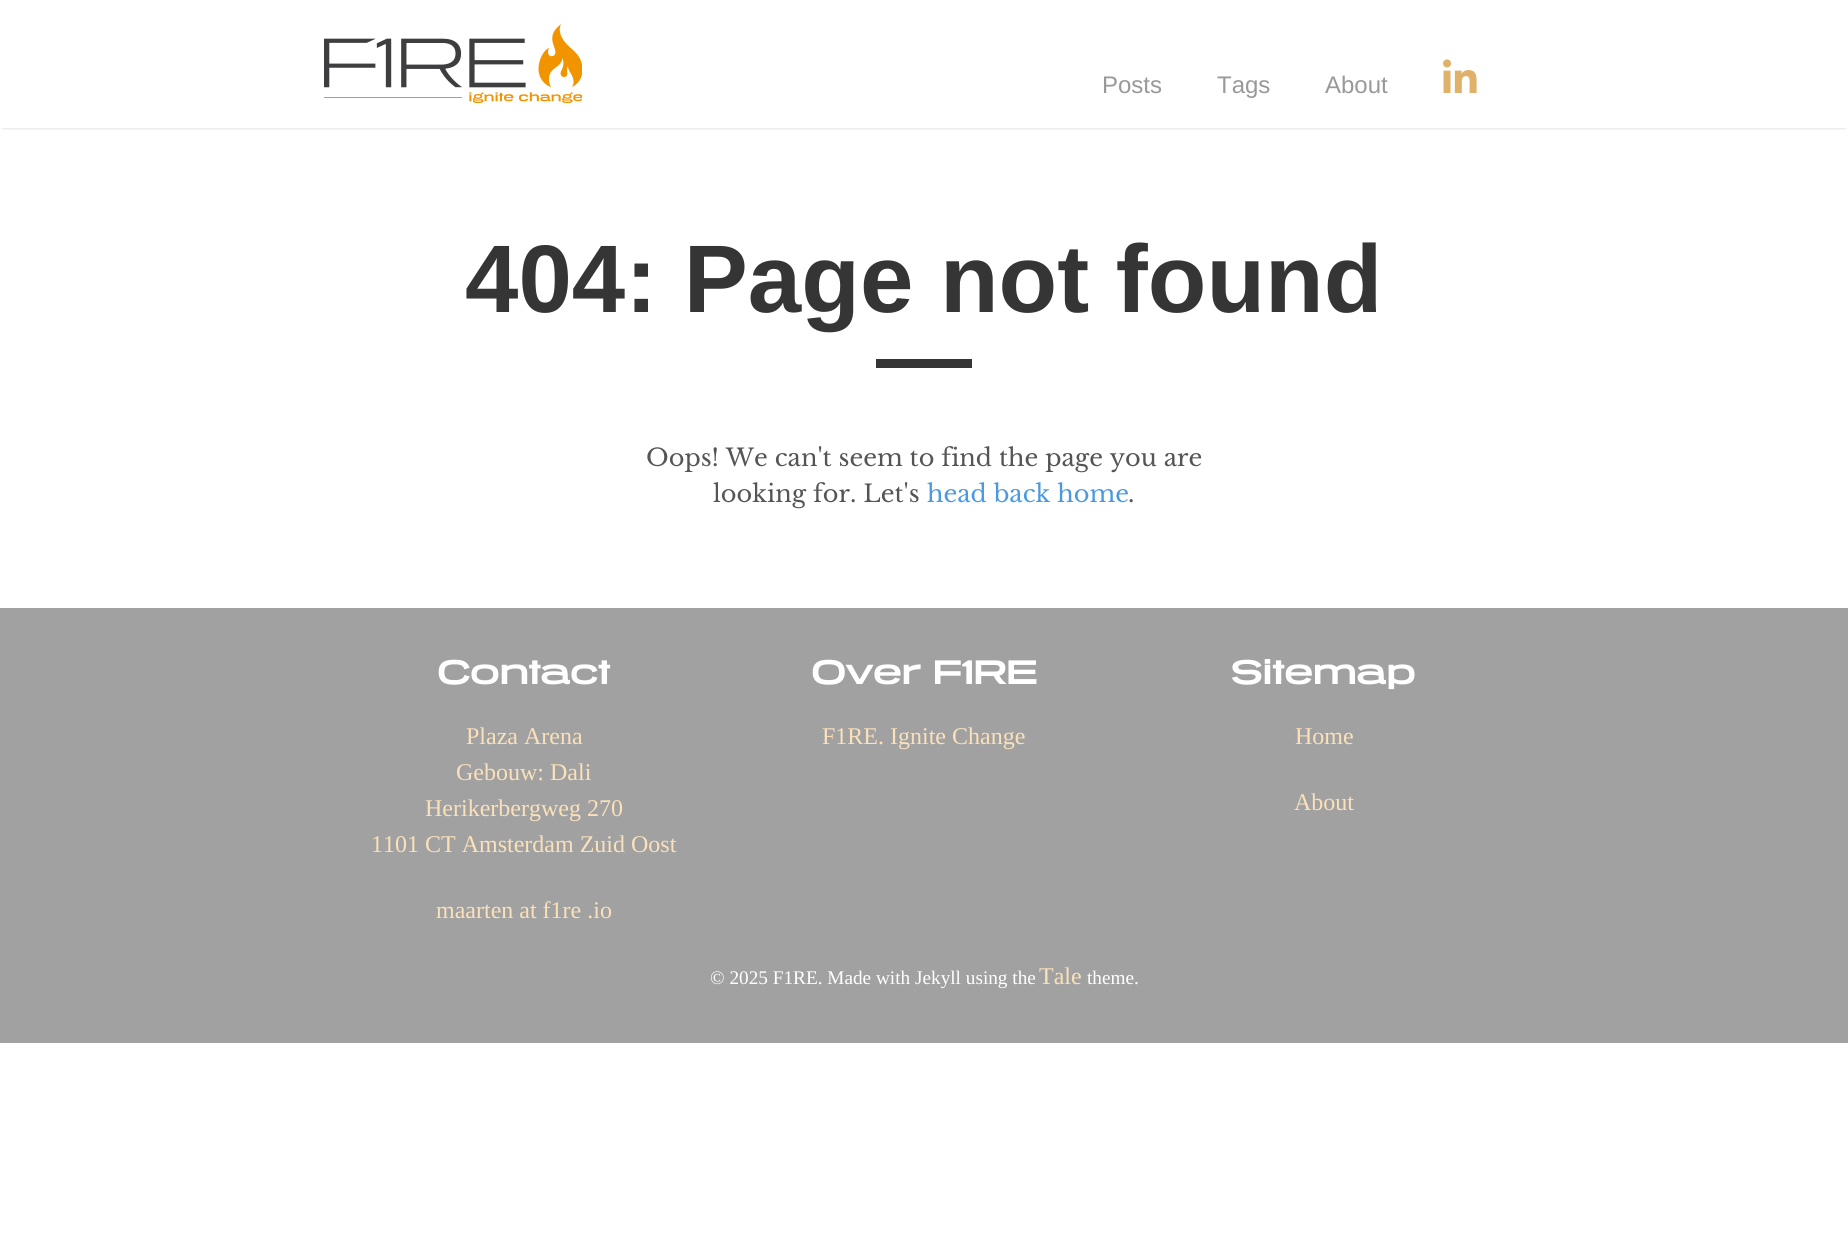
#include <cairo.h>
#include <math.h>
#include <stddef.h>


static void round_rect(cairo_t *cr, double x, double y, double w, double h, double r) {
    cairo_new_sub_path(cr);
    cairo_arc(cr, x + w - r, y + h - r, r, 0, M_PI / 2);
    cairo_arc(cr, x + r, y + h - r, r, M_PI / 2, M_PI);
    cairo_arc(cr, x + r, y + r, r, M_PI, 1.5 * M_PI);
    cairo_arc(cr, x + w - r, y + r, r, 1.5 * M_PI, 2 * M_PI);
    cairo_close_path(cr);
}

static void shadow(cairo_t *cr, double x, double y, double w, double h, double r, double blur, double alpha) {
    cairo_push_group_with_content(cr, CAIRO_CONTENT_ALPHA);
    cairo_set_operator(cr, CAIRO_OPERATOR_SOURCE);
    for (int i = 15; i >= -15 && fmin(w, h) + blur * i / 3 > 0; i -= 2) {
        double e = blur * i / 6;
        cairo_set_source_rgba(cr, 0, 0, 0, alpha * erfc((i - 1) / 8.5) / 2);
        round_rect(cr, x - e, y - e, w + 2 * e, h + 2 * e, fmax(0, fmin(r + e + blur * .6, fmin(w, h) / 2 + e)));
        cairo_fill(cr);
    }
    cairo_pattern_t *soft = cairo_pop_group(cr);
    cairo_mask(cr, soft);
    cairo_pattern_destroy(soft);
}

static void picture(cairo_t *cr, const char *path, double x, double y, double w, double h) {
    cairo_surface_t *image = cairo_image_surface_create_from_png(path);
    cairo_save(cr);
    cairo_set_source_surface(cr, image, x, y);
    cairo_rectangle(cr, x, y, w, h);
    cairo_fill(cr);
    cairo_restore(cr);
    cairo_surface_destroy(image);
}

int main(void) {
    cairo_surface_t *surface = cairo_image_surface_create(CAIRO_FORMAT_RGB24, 1848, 1243);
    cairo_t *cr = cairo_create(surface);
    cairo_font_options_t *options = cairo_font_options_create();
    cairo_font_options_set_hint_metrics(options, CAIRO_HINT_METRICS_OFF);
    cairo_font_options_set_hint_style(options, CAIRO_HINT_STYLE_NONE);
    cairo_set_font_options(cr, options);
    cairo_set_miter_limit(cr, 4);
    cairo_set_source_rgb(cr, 1, 1, 1);
    cairo_paint(cr);
    cairo_save(cr);
    cairo_set_fill_rule(cr, CAIRO_FILL_RULE_EVEN_ODD);
    cairo_new_path(cr);
    cairo_move_to(cr, 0, 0);
    cairo_line_to(cr, 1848, 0);
    cairo_line_to(cr, 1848, 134);
    cairo_line_to(cr, 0, 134);
    cairo_close_path(cr);
    cairo_move_to(cr, 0, 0);
    cairo_line_to(cr, 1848, 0);
    cairo_line_to(cr, 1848, 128);
    cairo_line_to(cr, 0, 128);
    cairo_close_path(cr);
    cairo_clip(cr);
    cairo_set_source_rgb(cr, 0, 0, 0);
    shadow(cr, 3, 6, 1842, 122, 0, 1.5, 0.2);
    cairo_restore(cr);
    picture(cr, "img1.png", 324, 24, 258, 79);
    cairo_select_font_face(cr, "Liberation Sans", CAIRO_FONT_SLANT_NORMAL, CAIRO_FONT_WEIGHT_NORMAL);
    cairo_set_font_size(cr, 24);
    cairo_set_source_rgb(cr, 0.6, 0.6, 0.6);
    cairo_move_to(cr, 1102, 93);
    cairo_show_text(cr, "Posts");
    cairo_move_to(cr, 1217, 93);
    cairo_show_text(cr, "Tags");
    cairo_move_to(cr, 1325, 93);
    cairo_show_text(cr, "About");
    picture(cr, "img2.png", 1443, 59, 34, 34);
    cairo_select_font_face(cr, "Liberation Sans", CAIRO_FONT_SLANT_NORMAL, CAIRO_FONT_WEIGHT_BOLD);
    cairo_set_font_size(cr, 96);
    cairo_set_source_rgb(cr, 0.208, 0.208, 0.208);
    cairo_move_to(cr, 465, 312);
    cairo_show_text(cr, "404: Page not found");
    cairo_rectangle(cr, 876, 359, 96, 9);
    cairo_fill(cr);
    cairo_select_font_face(cr, "Libre Baskerville", CAIRO_FONT_SLANT_NORMAL, CAIRO_FONT_WEIGHT_NORMAL);
    cairo_set_font_size(cr, 24);
    cairo_set_source_rgb(cr, 0.333, 0.333, 0.333);
    cairo_move_to(cr, 646, 466);
    cairo_show_text(cr, "Oops! We can't seem to find the page you are");
    cairo_move_to(cr, 713, 502);
    cairo_show_text(cr, "looking for. Let's");
    cairo_set_source_rgb(cr, 0.29, 0.604, 0.882);
    cairo_move_to(cr, 927, 502);
    cairo_show_text(cr, "head back home");
    cairo_set_source_rgb(cr, 0.333, 0.333, 0.333);
    cairo_move_to(cr, 1128, 502);
    cairo_show_text(cr, ".");
    cairo_set_source_rgb(cr, 0.631, 0.631, 0.631);
    cairo_rectangle(cr, 0, 608, 1848, 435);
    cairo_fill(cr);
    cairo_select_font_face(cr, "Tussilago", CAIRO_FONT_SLANT_NORMAL, CAIRO_FONT_WEIGHT_BOLD);
    cairo_set_font_size(cr, 33.5);
    cairo_set_source_rgb(cr, 1, 1, 1);
    cairo_move_to(cr, 437, 684);
    cairo_show_text(cr, "Contact");
    cairo_select_font_face(cr, "Liberation Serif", CAIRO_FONT_SLANT_NORMAL, CAIRO_FONT_WEIGHT_NORMAL);
    cairo_set_font_size(cr, 24);
    cairo_set_source_rgb(cr, 0.984, 0.882, 0.729);
    cairo_move_to(cr, 466, 744);
    cairo_show_text(cr, "Plaza Arena");
    cairo_move_to(cr, 456, 780);
    cairo_show_text(cr, "Gebouw: Dali");
    cairo_move_to(cr, 425, 816);
    cairo_show_text(cr, "Herikerbergweg 270");
    cairo_move_to(cr, 371, 852);
    cairo_show_text(cr, "1101 CT Amsterdam Zuid Oost");
    cairo_move_to(cr, 436, 918);
    cairo_show_text(cr, "maarten at f1re .io");
    cairo_select_font_face(cr, "Tussilago", CAIRO_FONT_SLANT_NORMAL, CAIRO_FONT_WEIGHT_BOLD);
    cairo_set_font_size(cr, 33.5);
    cairo_set_source_rgb(cr, 1, 1, 1);
    cairo_move_to(cr, 811, 684);
    cairo_show_text(cr, "Over F1RE");
    cairo_select_font_face(cr, "Liberation Serif", CAIRO_FONT_SLANT_NORMAL, CAIRO_FONT_WEIGHT_NORMAL);
    cairo_set_font_size(cr, 24);
    cairo_set_source_rgb(cr, 0.984, 0.882, 0.729);
    cairo_move_to(cr, 822, 744);
    cairo_show_text(cr, "F1RE. Ignite Change");
    cairo_select_font_face(cr, "Tussilago", CAIRO_FONT_SLANT_NORMAL, CAIRO_FONT_WEIGHT_BOLD);
    cairo_set_font_size(cr, 33.5);
    cairo_set_source_rgb(cr, 1, 1, 1);
    cairo_move_to(cr, 1231, 684);
    cairo_show_text(cr, "Sitemap");
    cairo_select_font_face(cr, "Liberation Serif", CAIRO_FONT_SLANT_NORMAL, CAIRO_FONT_WEIGHT_NORMAL);
    cairo_set_font_size(cr, 24);
    cairo_set_source_rgb(cr, 0.984, 0.882, 0.729);
    cairo_move_to(cr, 1295, 744);
    cairo_show_text(cr, "Home");
    cairo_move_to(cr, 1294, 810);
    cairo_show_text(cr, "About");
    cairo_set_font_size(cr, 19.25);
    cairo_set_source_rgb(cr, 1, 1, 1);
    cairo_move_to(cr, 710, 984);
    cairo_show_text(cr, "© 2025 F1RE. Made with Jekyll using the");
    cairo_set_font_size(cr, 24);
    cairo_set_source_rgb(cr, 0.984, 0.882, 0.729);
    cairo_move_to(cr, 1039, 984);
    cairo_show_text(cr, "Tale");
    cairo_set_font_size(cr, 19.25);
    cairo_set_source_rgb(cr, 1, 1, 1);
    cairo_move_to(cr, 1087, 984);
    cairo_show_text(cr, "theme.");
    cairo_surface_write_to_png(surface, "page.png");
    cairo_font_options_destroy(options);
    cairo_destroy(cr);
    cairo_surface_destroy(surface);
    return 0;
}
